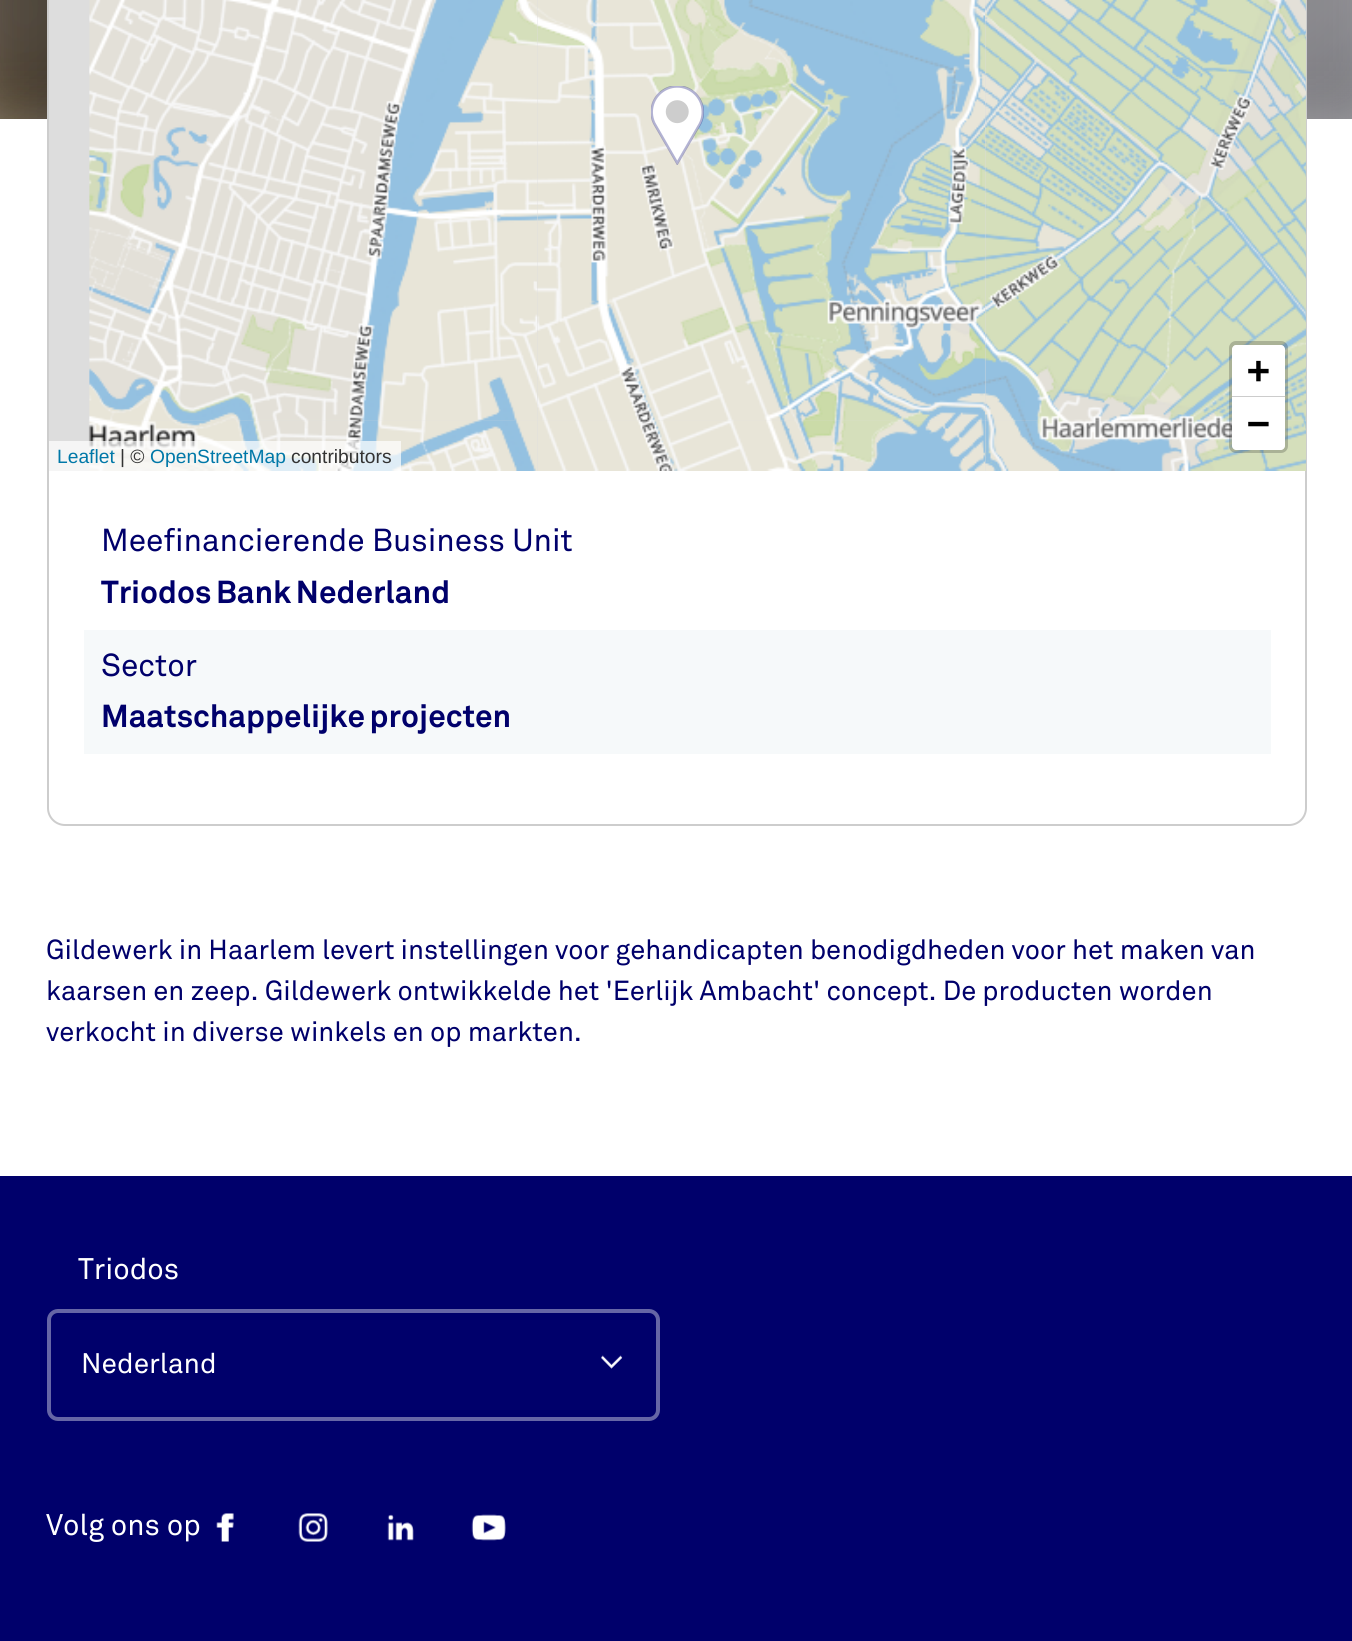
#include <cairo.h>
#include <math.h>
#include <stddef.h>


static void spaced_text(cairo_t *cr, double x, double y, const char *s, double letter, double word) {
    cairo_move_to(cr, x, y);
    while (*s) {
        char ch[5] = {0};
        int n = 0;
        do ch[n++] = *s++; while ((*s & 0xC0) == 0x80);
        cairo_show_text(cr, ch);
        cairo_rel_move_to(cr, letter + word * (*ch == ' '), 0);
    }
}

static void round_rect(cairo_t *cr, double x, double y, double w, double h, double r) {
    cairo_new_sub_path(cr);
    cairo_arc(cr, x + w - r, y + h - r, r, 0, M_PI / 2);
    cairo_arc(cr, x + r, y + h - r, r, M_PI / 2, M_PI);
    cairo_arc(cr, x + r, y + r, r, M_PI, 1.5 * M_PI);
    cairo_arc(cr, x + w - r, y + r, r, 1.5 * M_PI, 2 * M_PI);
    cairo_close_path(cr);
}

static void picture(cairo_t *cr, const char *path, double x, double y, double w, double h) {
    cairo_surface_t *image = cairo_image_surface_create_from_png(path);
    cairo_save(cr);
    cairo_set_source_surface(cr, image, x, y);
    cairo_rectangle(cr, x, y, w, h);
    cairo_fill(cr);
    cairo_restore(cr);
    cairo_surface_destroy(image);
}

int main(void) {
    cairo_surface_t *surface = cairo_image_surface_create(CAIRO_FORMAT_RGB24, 1352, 1641);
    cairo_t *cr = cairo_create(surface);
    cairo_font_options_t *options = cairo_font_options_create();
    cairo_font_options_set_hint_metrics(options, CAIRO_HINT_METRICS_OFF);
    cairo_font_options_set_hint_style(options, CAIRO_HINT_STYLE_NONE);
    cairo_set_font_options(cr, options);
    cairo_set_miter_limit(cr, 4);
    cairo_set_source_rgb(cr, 1, 1, 1);
    cairo_paint(cr);
    picture(cr, "img1.png", 0, 0, 1352, 119);
    cairo_set_source_rgb(cr, 1, 1, 1);
    round_rect(cr, 48, -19, 1258, 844, 17);
    cairo_fill_preserve(cr);
    cairo_set_source_rgb(cr, 0.804, 0.804, 0.804);
    cairo_stroke(cr);
    cairo_set_source_rgb(cr, 0.867, 0.867, 0.867);
    cairo_rectangle(cr, 49, 0, 1257, 471);
    cairo_fill(cr);
    picture(cr, "img2.png", 89, 0, 448, 420);
    picture(cr, "img3.png", 537, 0, 448, 420);
    picture(cr, "img6.png", 537, 419, 448, 52);
    picture(cr, "img4.png", 984, 0, 322, 420);
    picture(cr, "img5.png", 88, 419, 449, 52);
    picture(cr, "img7.png", 984, 419, 322, 52);
    picture(cr, "img8.png", 651, 86, 53, 79);
    round_rect(cr, 1231, 343, 55, 108, 5);
    cairo_set_source_rgba(cr, 0, 0, 0, 0.2);
    cairo_set_line_width(cr, 4);
    cairo_stroke(cr);
    cairo_set_source_rgb(cr, 1, 1, 1);
    cairo_new_path(cr);
    cairo_move_to(cr, 1236, 345);
    cairo_line_to(cr, 1281, 345);
    cairo_curve_to(cr, 1283, 345, 1285, 347, 1285, 349);
    cairo_line_to(cr, 1285, 397);
    cairo_line_to(cr, 1232, 397);
    cairo_line_to(cr, 1232, 349);
    cairo_curve_to(cr, 1232, 347, 1234, 345, 1236, 345);
    cairo_close_path(cr);
    cairo_fill(cr);
    cairo_set_source_rgb(cr, 0.8, 0.8, 0.8);
    cairo_rectangle(cr, 1232, 396, 53, 1);
    cairo_fill(cr);
    cairo_select_font_face(cr, "DejaVu Sans Mono", CAIRO_FONT_SLANT_NORMAL, CAIRO_FONT_WEIGHT_BOLD);
    cairo_set_font_size(cr, 38);
    cairo_set_source_rgb(cr, 0, 0, 0);
    cairo_move_to(cr, 1247, 383);
    cairo_show_text(cr, "+");
    cairo_set_source_rgb(cr, 1, 1, 1);
    cairo_new_path(cr);
    cairo_move_to(cr, 1232, 397);
    cairo_line_to(cr, 1285, 397);
    cairo_line_to(cr, 1285, 446);
    cairo_curve_to(cr, 1285, 448, 1283, 450, 1281, 450);
    cairo_line_to(cr, 1236, 450);
    cairo_curve_to(cr, 1234, 450, 1232, 448, 1232, 446);
    cairo_close_path(cr);
    cairo_fill(cr);
    cairo_set_source_rgb(cr, 0, 0, 0);
    cairo_move_to(cr, 1247, 436);
    cairo_show_text(cr, "−");
    cairo_set_source_rgba(cr, 1, 1, 1, 0.7);
    cairo_rectangle(cr, 49, 441, 352, 30);
    cairo_fill(cr);
    cairo_select_font_face(cr, "Liberation Sans", CAIRO_FONT_SLANT_NORMAL, CAIRO_FONT_WEIGHT_NORMAL);
    cairo_set_font_size(cr, 19.25);
    cairo_set_source_rgb(cr, 0, 0.471, 0.659);
    cairo_move_to(cr, 57, 463);
    cairo_show_text(cr, "Leaflet");
    cairo_set_source_rgb(cr, 0.2, 0.2, 0.2);
    cairo_move_to(cr, 120, 463);
    cairo_show_text(cr, "| ©");
    cairo_set_source_rgb(cr, 0, 0.471, 0.659);
    cairo_move_to(cr, 150, 463);
    cairo_show_text(cr, "OpenStreetMap");
    cairo_set_source_rgb(cr, 0.2, 0.2, 0.2);
    cairo_move_to(cr, 291, 463);
    cairo_show_text(cr, "contributors");
    cairo_select_font_face(cr, "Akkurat", CAIRO_FONT_SLANT_NORMAL, CAIRO_FONT_WEIGHT_NORMAL);
    cairo_set_font_size(cr, 31.5);
    cairo_set_source_rgb(cr, 0, 0, 0.42);
    cairo_move_to(cr, 101, 551);
    cairo_show_text(cr, "Meefinancierende Business Unit");
    cairo_select_font_face(cr, "Akkurat", CAIRO_FONT_SLANT_NORMAL, CAIRO_FONT_WEIGHT_BOLD);
    spaced_text(cr, 101, 603, "Triodos Bank Nederland", 0, -2);
    cairo_set_source_rgb(cr, 0.961, 0.976, 0.98);
    cairo_rectangle(cr, 84, 630, 1187, 124);
    cairo_fill(cr);
    cairo_select_font_face(cr, "Akkurat", CAIRO_FONT_SLANT_NORMAL, CAIRO_FONT_WEIGHT_NORMAL);
    cairo_set_source_rgb(cr, 0, 0, 0.42);
    cairo_move_to(cr, 101, 676);
    cairo_show_text(cr, "Sector");
    cairo_select_font_face(cr, "Akkurat", CAIRO_FONT_SLANT_NORMAL, CAIRO_FONT_WEIGHT_BOLD);
    spaced_text(cr, 101, 727, "Maatschappelijke projecten", 0, -2);
    cairo_select_font_face(cr, "Akkurat", CAIRO_FONT_SLANT_NORMAL, CAIRO_FONT_WEIGHT_NORMAL);
    cairo_set_font_size(cr, 27.3);
    spaced_text(cr, 46, 959, "Gildewerk in Haarlem levert instellingen voor gehandicapten benodigdheden voor het maken van", 0, -0.1);
    spaced_text(cr, 46, 1000, "kaarsen en zeep. Gildewerk ontwikkelde het 'Eerlijk Ambacht' concept. De producten worden", 0, -0.1);
    cairo_move_to(cr, 46, 1041);
    cairo_show_text(cr, "verkocht in diverse winkels en op markten.");
    cairo_rectangle(cr, 0, 1176, 1352, 465);
    cairo_fill(cr);
    cairo_set_font_size(cr, 29.5);
    cairo_set_source_rgb(cr, 1, 1, 1);
    cairo_move_to(cr, 78, 1279);
    cairo_show_text(cr, "Triodos");
    round_rect(cr, 49, 1311, 609, 108, 9);
    cairo_set_source_rgb(cr, 0.4, 0.4, 0.651);
    cairo_stroke(cr);
    cairo_set_font_size(cr, 28);
    cairo_set_source_rgb(cr, 1, 1, 1);
    cairo_move_to(cr, 81, 1373);
    cairo_show_text(cr, "Nederland");
    picture(cr, "img9.png", 601, 1355, 22, 14);
    cairo_set_font_size(cr, 29.5);
    cairo_move_to(cr, 46, 1535);
    cairo_show_text(cr, "Volg ons op");
    picture(cr, "img10.png", 216, 1513, 18, 29);
    picture(cr, "img11.png", 298, 1513, 30, 29);
    picture(cr, "img12.png", 387, 1514, 27, 27);
    picture(cr, "img13.png", 471, 1514, 35, 27);
    cairo_surface_write_to_png(surface, "page.png");
    cairo_font_options_destroy(options);
    cairo_destroy(cr);
    cairo_surface_destroy(surface);
    return 0;
}
